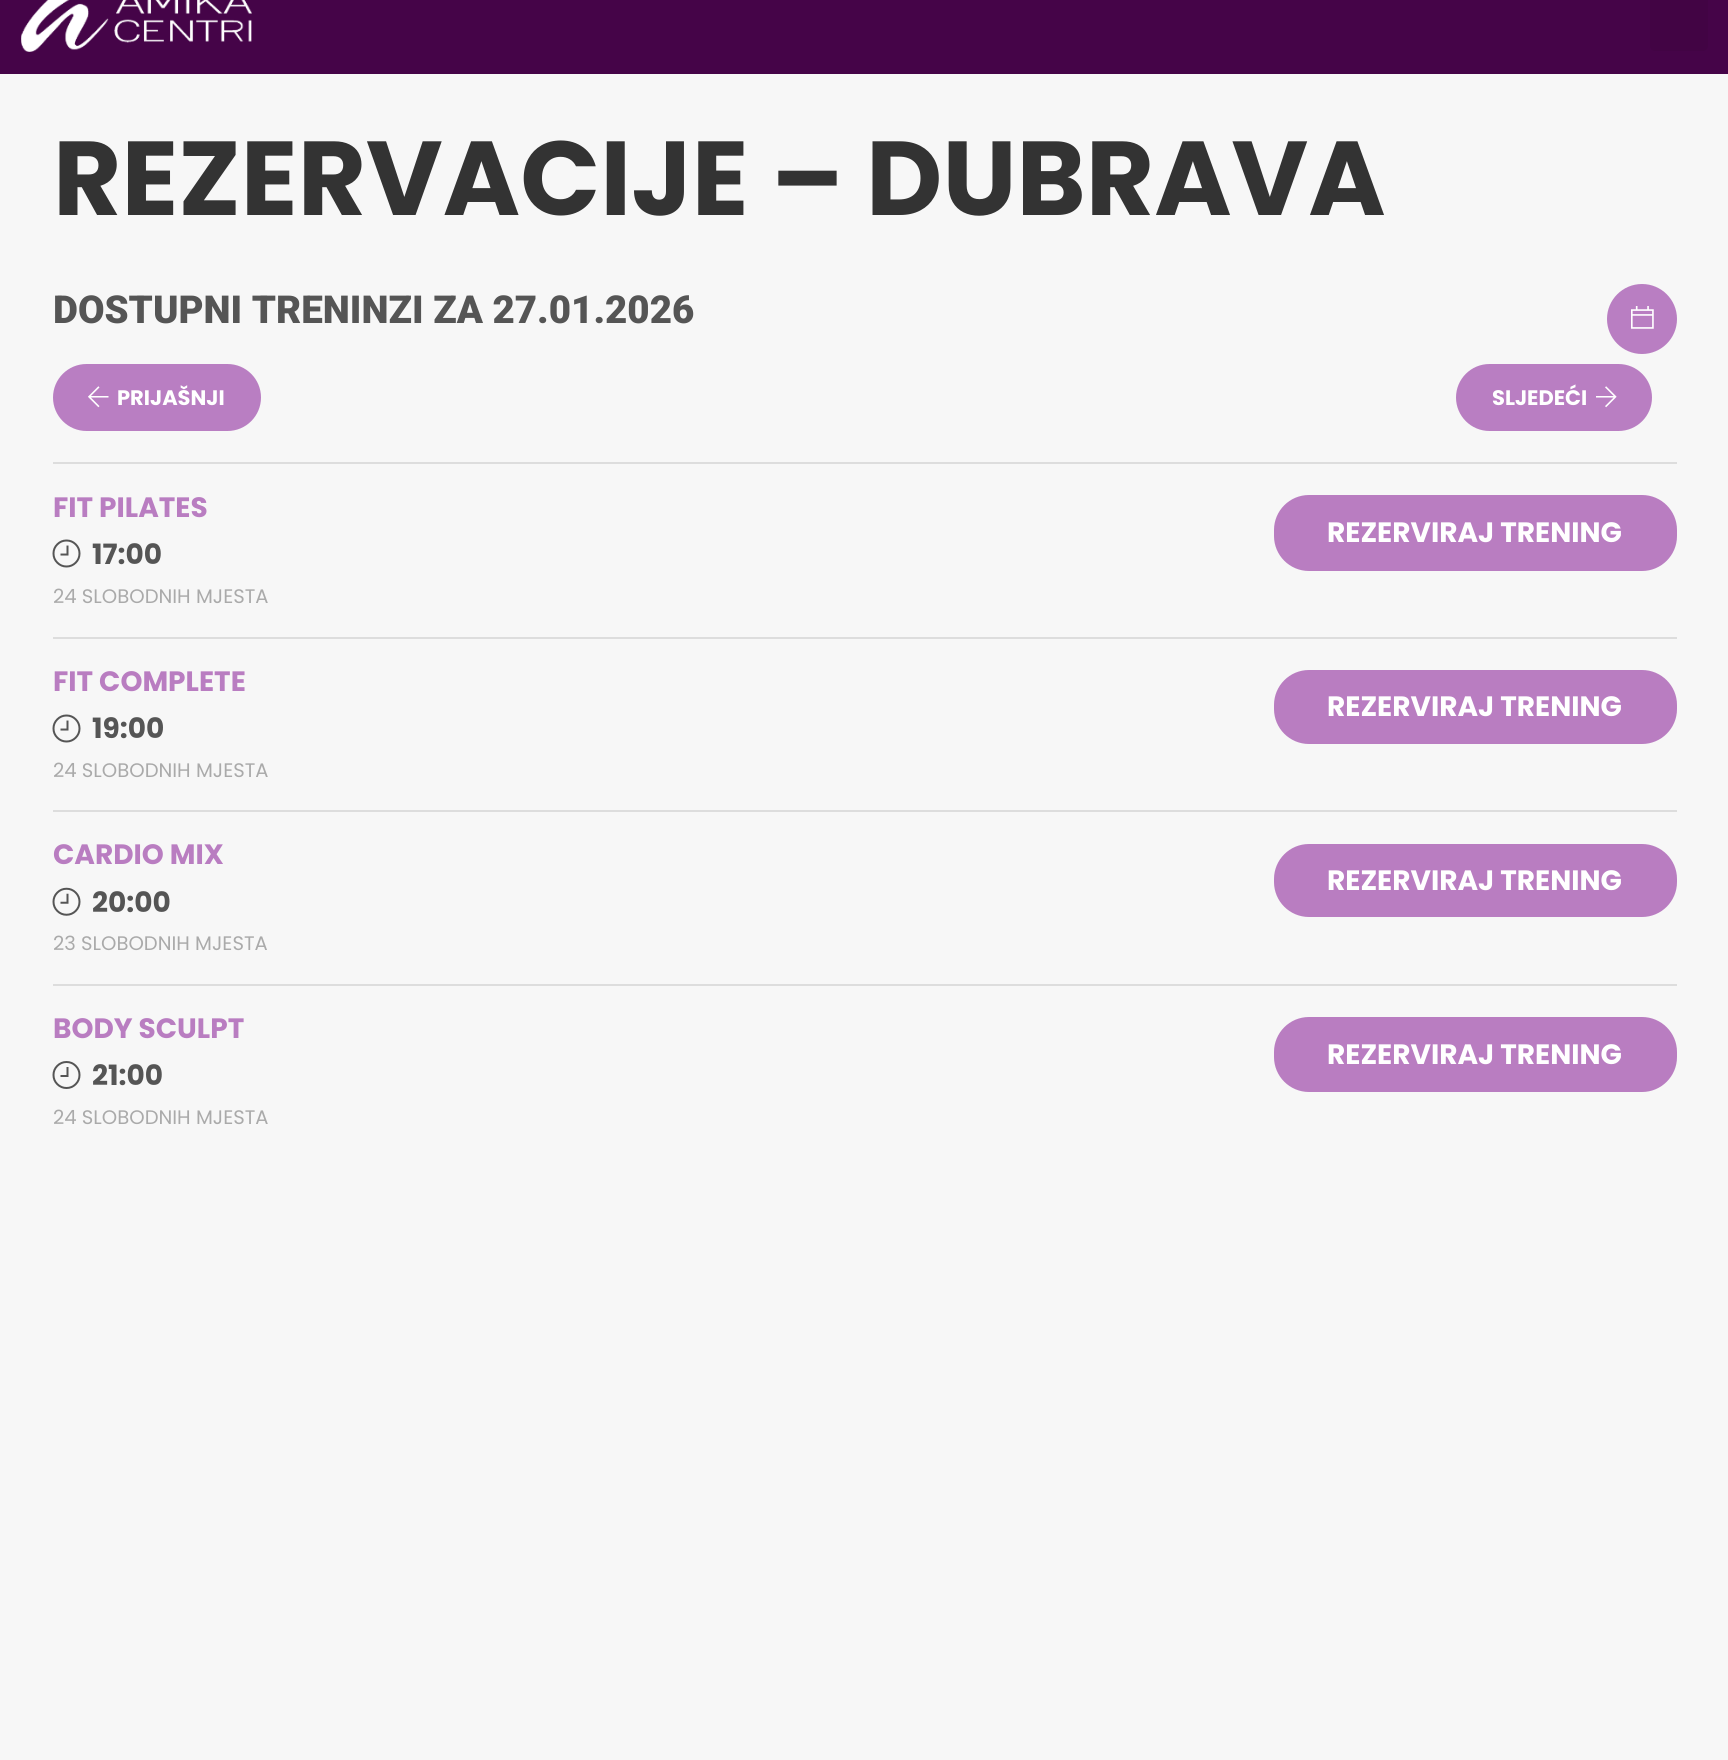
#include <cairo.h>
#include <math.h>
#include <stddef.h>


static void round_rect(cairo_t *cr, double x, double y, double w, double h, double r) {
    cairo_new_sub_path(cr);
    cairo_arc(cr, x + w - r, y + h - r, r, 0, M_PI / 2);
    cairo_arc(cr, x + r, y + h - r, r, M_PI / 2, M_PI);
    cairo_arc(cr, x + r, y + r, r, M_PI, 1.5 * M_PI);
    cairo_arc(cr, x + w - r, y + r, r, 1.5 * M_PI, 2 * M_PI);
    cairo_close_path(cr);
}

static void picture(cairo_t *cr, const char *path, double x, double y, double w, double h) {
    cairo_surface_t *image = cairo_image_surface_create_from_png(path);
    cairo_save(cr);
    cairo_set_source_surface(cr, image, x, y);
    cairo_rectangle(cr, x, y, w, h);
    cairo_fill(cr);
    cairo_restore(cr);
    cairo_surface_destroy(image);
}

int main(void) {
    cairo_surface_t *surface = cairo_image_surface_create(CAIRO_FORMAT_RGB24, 1728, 1760);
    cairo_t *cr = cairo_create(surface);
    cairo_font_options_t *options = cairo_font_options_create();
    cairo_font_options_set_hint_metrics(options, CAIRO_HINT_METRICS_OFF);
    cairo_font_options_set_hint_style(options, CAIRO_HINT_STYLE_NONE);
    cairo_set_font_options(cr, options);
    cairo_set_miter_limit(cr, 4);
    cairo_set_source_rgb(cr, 0.965, 0.965, 0.965);
    cairo_paint(cr);
    cairo_set_source_rgb(cr, 0.271, 0.016, 0.282);
    cairo_rectangle(cr, 0, 0, 1728, 74);
    cairo_fill(cr);
    picture(cr, "img1.png", 21, 0, 231, 52);
    cairo_set_source_rgb(cr, 0.259, 0.016, 0.267);
    round_rect(cr, 1650, -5, 58, 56, 5);
    cairo_fill(cr);
    cairo_select_font_face(cr, "Poppins", CAIRO_FONT_SLANT_NORMAL, CAIRO_FONT_WEIGHT_BOLD);
    cairo_set_font_size(cr, 105);
    cairo_set_source_rgb(cr, 0.2, 0.2, 0.2);
    cairo_move_to(cr, 53, 215);
    cairo_show_text(cr, "REZERVACIJE – DUBRAVA");
    cairo_select_font_face(cr, "Roboto Black", CAIRO_FONT_SLANT_NORMAL, CAIRO_FONT_WEIGHT_NORMAL);
    cairo_set_font_size(cr, 38.5);
    cairo_set_source_rgb(cr, 0.333, 0.333, 0.333);
    cairo_move_to(cr, 53, 323);
    cairo_show_text(cr, "DOSTUPNI TRENINZI ZA 27.01.2026");
    cairo_set_source_rgb(cr, 0.725, 0.494, 0.761);
    cairo_new_path(cr);
    cairo_arc(cr, 1642, 319, 35, 0, 2 * M_PI);
    cairo_fill(cr);
    picture(cr, "img2.png", 1631, 306, 23, 23);
    round_rect(cr, 53, 364, 208, 67, 33.5);
    cairo_fill(cr);
    picture(cr, "img3.png", 88, 386, 21, 22);
    cairo_select_font_face(cr, "Poppins", CAIRO_FONT_SLANT_NORMAL, CAIRO_FONT_WEIGHT_BOLD);
    cairo_set_font_size(cr, 21);
    cairo_set_source_rgb(cr, 1, 1, 1);
    cairo_move_to(cr, 117, 405);
    cairo_show_text(cr, "PRIJAŠNJI");
    cairo_set_source_rgb(cr, 0.725, 0.494, 0.761);
    round_rect(cr, 1456, 364, 196, 67, 33.5);
    cairo_fill(cr);
    cairo_set_source_rgb(cr, 1, 1, 1);
    cairo_move_to(cr, 1492, 405);
    cairo_show_text(cr, "SLJEDEĆI");
    picture(cr, "img4.png", 1596, 386, 21, 22);
    cairo_set_source_rgb(cr, 0.867, 0.867, 0.867);
    cairo_rectangle(cr, 53, 462, 1624, 2);
    cairo_fill(cr);
    cairo_set_font_size(cr, 28);
    cairo_set_source_rgb(cr, 0.725, 0.49, 0.757);
    cairo_move_to(cr, 53, 517);
    cairo_show_text(cr, "FIT PILATES");
    picture(cr, "img5.png", 52, 539, 29, 29);
    cairo_set_source_rgb(cr, 0.333, 0.333, 0.333);
    cairo_move_to(cr, 92, 564);
    cairo_show_text(cr, "17:00");
    cairo_select_font_face(cr, "Poppins", CAIRO_FONT_SLANT_NORMAL, CAIRO_FONT_WEIGHT_NORMAL);
    cairo_set_font_size(cr, 19.6);
    cairo_set_source_rgb(cr, 0.667, 0.667, 0.667);
    cairo_move_to(cr, 53, 603);
    cairo_show_text(cr, "24 SLOBODNIH MJESTA");
    cairo_set_source_rgb(cr, 0.725, 0.49, 0.757);
    round_rect(cr, 1275, 496, 401, 74, 34);
    cairo_fill_preserve(cr);
    cairo_stroke(cr);
    cairo_select_font_face(cr, "Poppins", CAIRO_FONT_SLANT_NORMAL, CAIRO_FONT_WEIGHT_BOLD);
    cairo_set_font_size(cr, 28);
    cairo_set_source_rgb(cr, 1, 1, 1);
    cairo_move_to(cr, 1327, 542);
    cairo_show_text(cr, "REZERVIRAJ TRENING");
    cairo_set_source_rgb(cr, 0.867, 0.867, 0.867);
    cairo_rectangle(cr, 53, 637, 1624, 2);
    cairo_fill(cr);
    cairo_set_source_rgb(cr, 0.725, 0.49, 0.757);
    cairo_move_to(cr, 53, 691);
    cairo_show_text(cr, "FIT COMPLETE");
    picture(cr, "img5.png", 52, 714, 29, 29);
    cairo_set_source_rgb(cr, 0.333, 0.333, 0.333);
    cairo_move_to(cr, 92, 738);
    cairo_show_text(cr, "19:00");
    cairo_select_font_face(cr, "Poppins", CAIRO_FONT_SLANT_NORMAL, CAIRO_FONT_WEIGHT_NORMAL);
    cairo_set_font_size(cr, 19.6);
    cairo_set_source_rgb(cr, 0.667, 0.667, 0.667);
    cairo_move_to(cr, 53, 777);
    cairo_show_text(cr, "24 SLOBODNIH MJESTA");
    cairo_set_source_rgb(cr, 0.725, 0.49, 0.757);
    round_rect(cr, 1275, 671, 401, 72, 34);
    cairo_fill_preserve(cr);
    cairo_stroke(cr);
    cairo_select_font_face(cr, "Poppins", CAIRO_FONT_SLANT_NORMAL, CAIRO_FONT_WEIGHT_BOLD);
    cairo_set_font_size(cr, 28);
    cairo_set_source_rgb(cr, 1, 1, 1);
    cairo_move_to(cr, 1327, 716);
    cairo_show_text(cr, "REZERVIRAJ TRENING");
    cairo_set_source_rgb(cr, 0.867, 0.867, 0.867);
    cairo_rectangle(cr, 53, 810, 1624, 2);
    cairo_fill(cr);
    cairo_set_source_rgb(cr, 0.725, 0.49, 0.757);
    cairo_move_to(cr, 53, 864);
    cairo_show_text(cr, "CARDIO MIX");
    picture(cr, "img6.png", 52, 887, 29, 29);
    cairo_set_source_rgb(cr, 0.333, 0.333, 0.333);
    cairo_move_to(cr, 92, 912);
    cairo_show_text(cr, "20:00");
    cairo_select_font_face(cr, "Poppins", CAIRO_FONT_SLANT_NORMAL, CAIRO_FONT_WEIGHT_NORMAL);
    cairo_set_font_size(cr, 19.6);
    cairo_set_source_rgb(cr, 0.667, 0.667, 0.667);
    cairo_move_to(cr, 53, 950);
    cairo_show_text(cr, "23 SLOBODNIH MJESTA");
    cairo_set_source_rgb(cr, 0.725, 0.49, 0.757);
    round_rect(cr, 1275, 845, 401, 71, 34);
    cairo_fill_preserve(cr);
    cairo_stroke(cr);
    cairo_select_font_face(cr, "Poppins", CAIRO_FONT_SLANT_NORMAL, CAIRO_FONT_WEIGHT_BOLD);
    cairo_set_font_size(cr, 28);
    cairo_set_source_rgb(cr, 1, 1, 1);
    cairo_move_to(cr, 1327, 890);
    cairo_show_text(cr, "REZERVIRAJ TRENING");
    cairo_set_source_rgb(cr, 0.867, 0.867, 0.867);
    cairo_rectangle(cr, 53, 984, 1624, 2);
    cairo_fill(cr);
    cairo_set_source_rgb(cr, 0.725, 0.49, 0.757);
    cairo_move_to(cr, 53, 1038);
    cairo_show_text(cr, "BODY SCULPT");
    picture(cr, "img7.png", 52, 1061, 29, 28);
    cairo_set_source_rgb(cr, 0.333, 0.333, 0.333);
    cairo_move_to(cr, 92, 1085);
    cairo_show_text(cr, "21:00");
    cairo_select_font_face(cr, "Poppins", CAIRO_FONT_SLANT_NORMAL, CAIRO_FONT_WEIGHT_NORMAL);
    cairo_set_font_size(cr, 19.6);
    cairo_set_source_rgb(cr, 0.667, 0.667, 0.667);
    cairo_move_to(cr, 53, 1124);
    cairo_show_text(cr, "24 SLOBODNIH MJESTA");
    cairo_set_source_rgb(cr, 0.725, 0.49, 0.757);
    round_rect(cr, 1275, 1018, 401, 73, 34);
    cairo_fill_preserve(cr);
    cairo_stroke(cr);
    cairo_select_font_face(cr, "Poppins", CAIRO_FONT_SLANT_NORMAL, CAIRO_FONT_WEIGHT_BOLD);
    cairo_set_font_size(cr, 28);
    cairo_set_source_rgb(cr, 1, 1, 1);
    cairo_move_to(cr, 1327, 1064);
    cairo_show_text(cr, "REZERVIRAJ TRENING");
    cairo_surface_write_to_png(surface, "page.png");
    cairo_font_options_destroy(options);
    cairo_destroy(cr);
    cairo_surface_destroy(surface);
    return 0;
}
